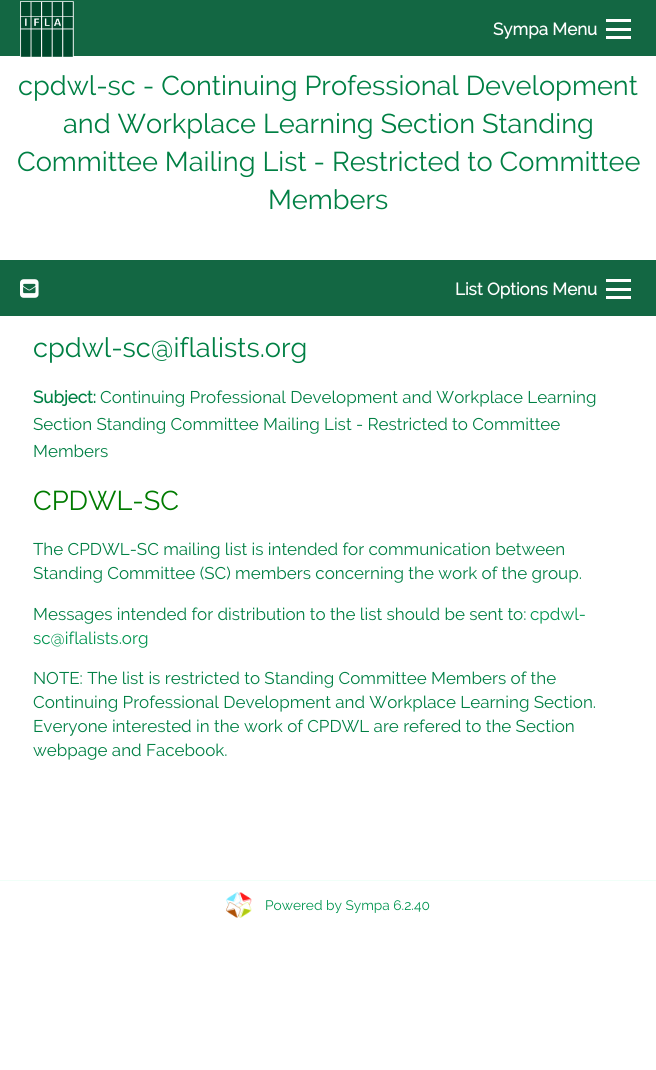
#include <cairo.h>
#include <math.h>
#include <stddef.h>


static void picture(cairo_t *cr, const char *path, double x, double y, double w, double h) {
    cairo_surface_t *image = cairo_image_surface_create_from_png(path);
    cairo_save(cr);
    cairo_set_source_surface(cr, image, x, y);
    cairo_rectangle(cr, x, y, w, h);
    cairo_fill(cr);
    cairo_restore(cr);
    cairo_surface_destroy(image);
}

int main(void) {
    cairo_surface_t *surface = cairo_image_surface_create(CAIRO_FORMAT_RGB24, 656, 1070);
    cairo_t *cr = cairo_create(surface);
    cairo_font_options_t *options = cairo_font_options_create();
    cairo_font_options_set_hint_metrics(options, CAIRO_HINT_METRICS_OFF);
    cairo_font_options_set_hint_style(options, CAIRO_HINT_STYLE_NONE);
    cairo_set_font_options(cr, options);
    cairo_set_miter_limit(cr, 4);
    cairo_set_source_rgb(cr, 1, 1, 1);
    cairo_paint(cr);
    cairo_set_source_rgb(cr, 0.075, 0.404, 0.263);
    cairo_rectangle(cr, 0, 0, 656, 56);
    cairo_fill(cr);
    picture(cr, "img1.png", 20, 1, 54, 56);
    cairo_select_font_face(cr, "Raleway", CAIRO_FONT_SLANT_NORMAL, CAIRO_FONT_WEIGHT_BOLD);
    cairo_set_font_size(cr, 17);
    cairo_set_source_rgb(cr, 0.996, 0.996, 0.996);
    cairo_move_to(cr, 493, 35);
    cairo_show_text(cr, "Sympa Menu");
    cairo_rectangle(cr, 606, 36, 25, 3);
    cairo_fill(cr);
    cairo_rectangle(cr, 606, 28, 25, 3);
    cairo_fill(cr);
    cairo_rectangle(cr, 606, 19, 25, 3);
    cairo_fill(cr);
    cairo_select_font_face(cr, "Raleway", CAIRO_FONT_SLANT_NORMAL, CAIRO_FONT_WEIGHT_NORMAL);
    cairo_set_font_size(cr, 27.2);
    cairo_set_source_rgb(cr, 0, 0.502, 0.267);
    cairo_move_to(cr, 18, 95);
    cairo_show_text(cr, "cpdwl-sc - Continuing Professional Development");
    cairo_move_to(cr, 63, 133);
    cairo_show_text(cr, "and Workplace Learning Section Standing");
    cairo_move_to(cr, 17, 171);
    cairo_show_text(cr, "Committee Mailing List - Restricted to Committee");
    cairo_move_to(cr, 268, 209);
    cairo_show_text(cr, "Members");
    cairo_set_source_rgb(cr, 0.075, 0.404, 0.263);
    cairo_rectangle(cr, 0, 260, 656, 56);
    cairo_fill(cr);
    picture(cr, "img2.png", 20, 279, 19, 19);
    cairo_select_font_face(cr, "Raleway", CAIRO_FONT_SLANT_NORMAL, CAIRO_FONT_WEIGHT_BOLD);
    cairo_set_font_size(cr, 17);
    cairo_set_source_rgb(cr, 0.996, 0.996, 0.996);
    cairo_move_to(cr, 455, 295);
    cairo_show_text(cr, "List Options Menu");
    cairo_rectangle(cr, 606, 296, 25, 3);
    cairo_fill(cr);
    cairo_rectangle(cr, 606, 288, 25, 3);
    cairo_fill(cr);
    cairo_rectangle(cr, 606, 279, 25, 3);
    cairo_fill(cr);
    cairo_select_font_face(cr, "Raleway", CAIRO_FONT_SLANT_NORMAL, CAIRO_FONT_WEIGHT_NORMAL);
    cairo_set_font_size(cr, 27.2);
    cairo_set_source_rgb(cr, 0, 0.502, 0.267);
    cairo_move_to(cr, 33, 357);
    cairo_show_text(cr, "cpdwl-sc@iflalists.org");
    cairo_select_font_face(cr, "Raleway", CAIRO_FONT_SLANT_NORMAL, CAIRO_FONT_WEIGHT_BOLD);
    cairo_set_font_size(cr, 17);
    cairo_move_to(cr, 33, 403);
    cairo_show_text(cr, "Subject:");
    cairo_select_font_face(cr, "Raleway", CAIRO_FONT_SLANT_NORMAL, CAIRO_FONT_WEIGHT_NORMAL);
    cairo_move_to(cr, 100, 403);
    cairo_show_text(cr, "Continuing Professional Development and Workplace Learning");
    cairo_move_to(cr, 33, 430);
    cairo_show_text(cr, "Section Standing Committee Mailing List - Restricted to Committee");
    cairo_move_to(cr, 33, 457);
    cairo_show_text(cr, "Members");
    cairo_set_font_size(cr, 27.2);
    cairo_set_source_rgb(cr, 0, 0.482, 0);
    cairo_move_to(cr, 33, 510);
    cairo_show_text(cr, "CPDWL-SC");
    cairo_set_font_size(cr, 17);
    cairo_set_source_rgb(cr, 0, 0.502, 0.267);
    cairo_move_to(cr, 33, 555);
    cairo_show_text(cr, "The CPDWL-SC mailing list is intended for communication between");
    cairo_move_to(cr, 33, 579);
    cairo_show_text(cr, "Standing Committee (SC) members concerning the work of the group.");
    cairo_move_to(cr, 33, 620);
    cairo_show_text(cr, "Messages intended for distribution to the list should be sent to:");
    cairo_set_source_rgb(cr, 0, 0.58, 0.31);
    cairo_move_to(cr, 530, 620);
    cairo_show_text(cr, "cpdwl-");
    cairo_move_to(cr, 33, 644);
    cairo_show_text(cr, "sc@iflalists.org");
    cairo_set_source_rgb(cr, 0, 0.502, 0.267);
    cairo_move_to(cr, 33, 684);
    cairo_show_text(cr, "NOTE: The list is restricted to Standing Committee Members of the");
    cairo_move_to(cr, 33, 708);
    cairo_show_text(cr, "Continuing Professional Development and Workplace Learning Section.");
    cairo_move_to(cr, 33, 732);
    cairo_show_text(cr, "Everyone interested in the work of CPDWL are refered to the Section");
    cairo_move_to(cr, 33, 756);
    cairo_show_text(cr, "webpage and Facebook.");
    cairo_set_source_rgb(cr, 0.941, 1, 0.969);
    cairo_rectangle(cr, 0, 880, 656, 1);
    cairo_fill(cr);
    picture(cr, "img3.png", 226, 892, 26, 26);
    cairo_set_font_size(cr, 13.75);
    cairo_set_source_rgb(cr, 0, 0.58, 0.31);
    cairo_move_to(cr, 265, 910);
    cairo_show_text(cr, "Powered by Sympa 6.2.40");
    cairo_surface_write_to_png(surface, "page.png");
    cairo_font_options_destroy(options);
    cairo_destroy(cr);
    cairo_surface_destroy(surface);
    return 0;
}
